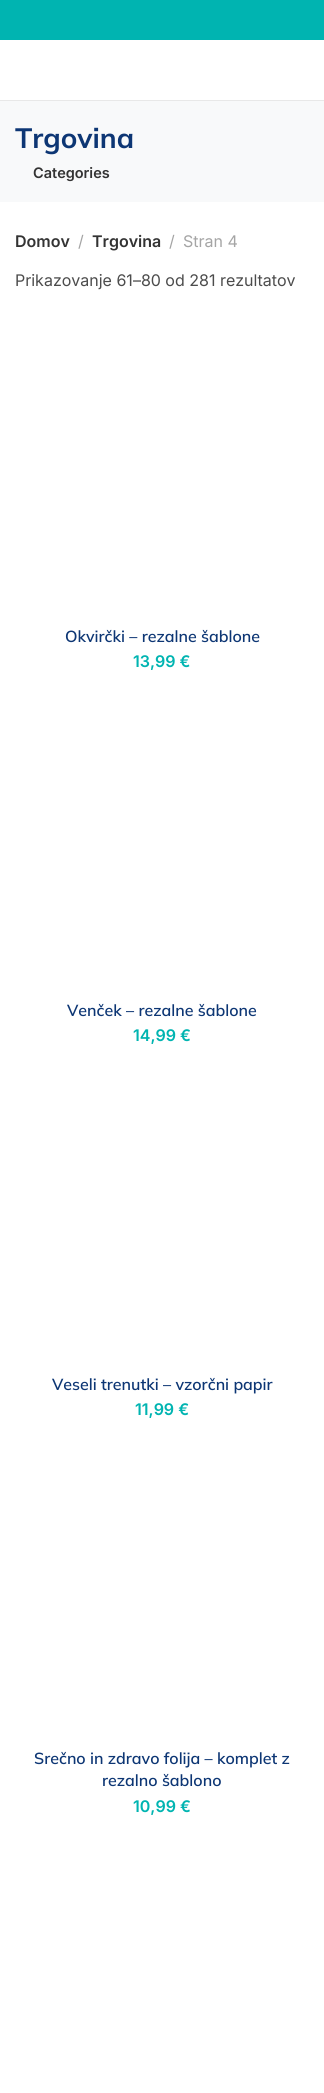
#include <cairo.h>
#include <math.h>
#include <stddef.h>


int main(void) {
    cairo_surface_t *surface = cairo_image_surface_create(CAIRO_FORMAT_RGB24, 324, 2093);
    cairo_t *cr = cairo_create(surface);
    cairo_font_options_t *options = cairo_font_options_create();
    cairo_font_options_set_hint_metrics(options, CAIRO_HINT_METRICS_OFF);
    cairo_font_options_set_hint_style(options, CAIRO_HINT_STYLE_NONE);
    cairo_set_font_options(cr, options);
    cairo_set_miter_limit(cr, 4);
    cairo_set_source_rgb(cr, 1, 1, 1);
    cairo_paint(cr);
    cairo_set_source_rgb(cr, 0, 0.706, 0.694);
    cairo_rectangle(cr, 0, 0, 324, 40);
    cairo_fill(cr);
    cairo_set_source_rgb(cr, 0.91, 0.91, 0.91);
    cairo_rectangle(cr, 0, 100, 324, 1);
    cairo_fill(cr);
    cairo_set_source_rgb(cr, 0.969, 0.973, 0.98);
    cairo_rectangle(cr, 0, 101, 324, 101);
    cairo_fill(cr);
    cairo_select_font_face(cr, "Mulish", CAIRO_FONT_SLANT_NORMAL, CAIRO_FONT_WEIGHT_BOLD);
    cairo_set_font_size(cr, 28);
    cairo_set_source_rgb(cr, 0.051, 0.212, 0.455);
    cairo_move_to(cr, 15, 148);
    cairo_show_text(cr, "Trgovina");
    cairo_select_font_face(cr, "Inter SemiBold", CAIRO_FONT_SLANT_NORMAL, CAIRO_FONT_WEIGHT_NORMAL);
    cairo_set_font_size(cr, 14.5);
    cairo_set_source_rgb(cr, 0.2, 0.2, 0.2);
    cairo_move_to(cr, 33, 178);
    cairo_show_text(cr, "Categories");
    cairo_set_font_size(cr, 16);
    cairo_move_to(cr, 15, 247);
    cairo_show_text(cr, "Domov");
    cairo_select_font_face(cr, "Inter", CAIRO_FONT_SLANT_NORMAL, CAIRO_FONT_WEIGHT_NORMAL);
    cairo_set_source_rgb(cr, 0.647, 0.647, 0.647);
    cairo_move_to(cr, 78, 247);
    cairo_show_text(cr, "/");
    cairo_select_font_face(cr, "Inter SemiBold", CAIRO_FONT_SLANT_NORMAL, CAIRO_FONT_WEIGHT_NORMAL);
    cairo_set_source_rgb(cr, 0.2, 0.2, 0.2);
    cairo_move_to(cr, 92, 247);
    cairo_show_text(cr, "Trgovina");
    cairo_select_font_face(cr, "Inter", CAIRO_FONT_SLANT_NORMAL, CAIRO_FONT_WEIGHT_NORMAL);
    cairo_set_source_rgb(cr, 0.647, 0.647, 0.647);
    cairo_move_to(cr, 169, 247);
    cairo_show_text(cr, "/");
    cairo_move_to(cr, 183, 247);
    cairo_show_text(cr, "Stran 4");
    cairo_set_source_rgb(cr, 0.298, 0.298, 0.298);
    cairo_move_to(cr, 15, 286);
    cairo_show_text(cr, "Prikazovanje 61–80 od 281 rezultatov");
    cairo_select_font_face(cr, "Mulish SemiBold", CAIRO_FONT_SLANT_NORMAL, CAIRO_FONT_WEIGHT_NORMAL);
    cairo_set_source_rgb(cr, 0.051, 0.212, 0.455);
    cairo_move_to(cr, 65, 642);
    cairo_show_text(cr, "Okvirčki – rezalne šablone");
    cairo_select_font_face(cr, "Inter SemiBold", CAIRO_FONT_SLANT_NORMAL, CAIRO_FONT_WEIGHT_NORMAL);
    cairo_set_source_rgb(cr, 0, 0.706, 0.694);
    cairo_move_to(cr, 133, 667);
    cairo_show_text(cr, "13,99 €");
    cairo_select_font_face(cr, "Mulish SemiBold", CAIRO_FONT_SLANT_NORMAL, CAIRO_FONT_WEIGHT_NORMAL);
    cairo_set_source_rgb(cr, 0.051, 0.212, 0.455);
    cairo_move_to(cr, 67, 1016);
    cairo_show_text(cr, "Venček – rezalne šablone");
    cairo_select_font_face(cr, "Inter SemiBold", CAIRO_FONT_SLANT_NORMAL, CAIRO_FONT_WEIGHT_NORMAL);
    cairo_set_source_rgb(cr, 0, 0.706, 0.694);
    cairo_move_to(cr, 133, 1041);
    cairo_show_text(cr, "14,99 €");
    cairo_select_font_face(cr, "Mulish SemiBold", CAIRO_FONT_SLANT_NORMAL, CAIRO_FONT_WEIGHT_NORMAL);
    cairo_set_source_rgb(cr, 0.051, 0.212, 0.455);
    cairo_move_to(cr, 52, 1390);
    cairo_show_text(cr, "Veseli trenutki – vzorčni papir");
    cairo_select_font_face(cr, "Inter SemiBold", CAIRO_FONT_SLANT_NORMAL, CAIRO_FONT_WEIGHT_NORMAL);
    cairo_set_source_rgb(cr, 0, 0.706, 0.694);
    cairo_move_to(cr, 135, 1415);
    cairo_show_text(cr, "11,99 €");
    cairo_select_font_face(cr, "Mulish SemiBold", CAIRO_FONT_SLANT_NORMAL, CAIRO_FONT_WEIGHT_NORMAL);
    cairo_set_source_rgb(cr, 0.051, 0.212, 0.455);
    cairo_move_to(cr, 34, 1764);
    cairo_show_text(cr, "Srečno in zdravo folija – komplet z");
    cairo_move_to(cr, 102, 1786);
    cairo_show_text(cr, "rezalno šablono");
    cairo_select_font_face(cr, "Inter SemiBold", CAIRO_FONT_SLANT_NORMAL, CAIRO_FONT_WEIGHT_NORMAL);
    cairo_set_source_rgb(cr, 0, 0.706, 0.694);
    cairo_move_to(cr, 133, 1812);
    cairo_show_text(cr, "10,99 €");
    cairo_surface_write_to_png(surface, "page.png");
    cairo_font_options_destroy(options);
    cairo_destroy(cr);
    cairo_surface_destroy(surface);
    return 0;
}
